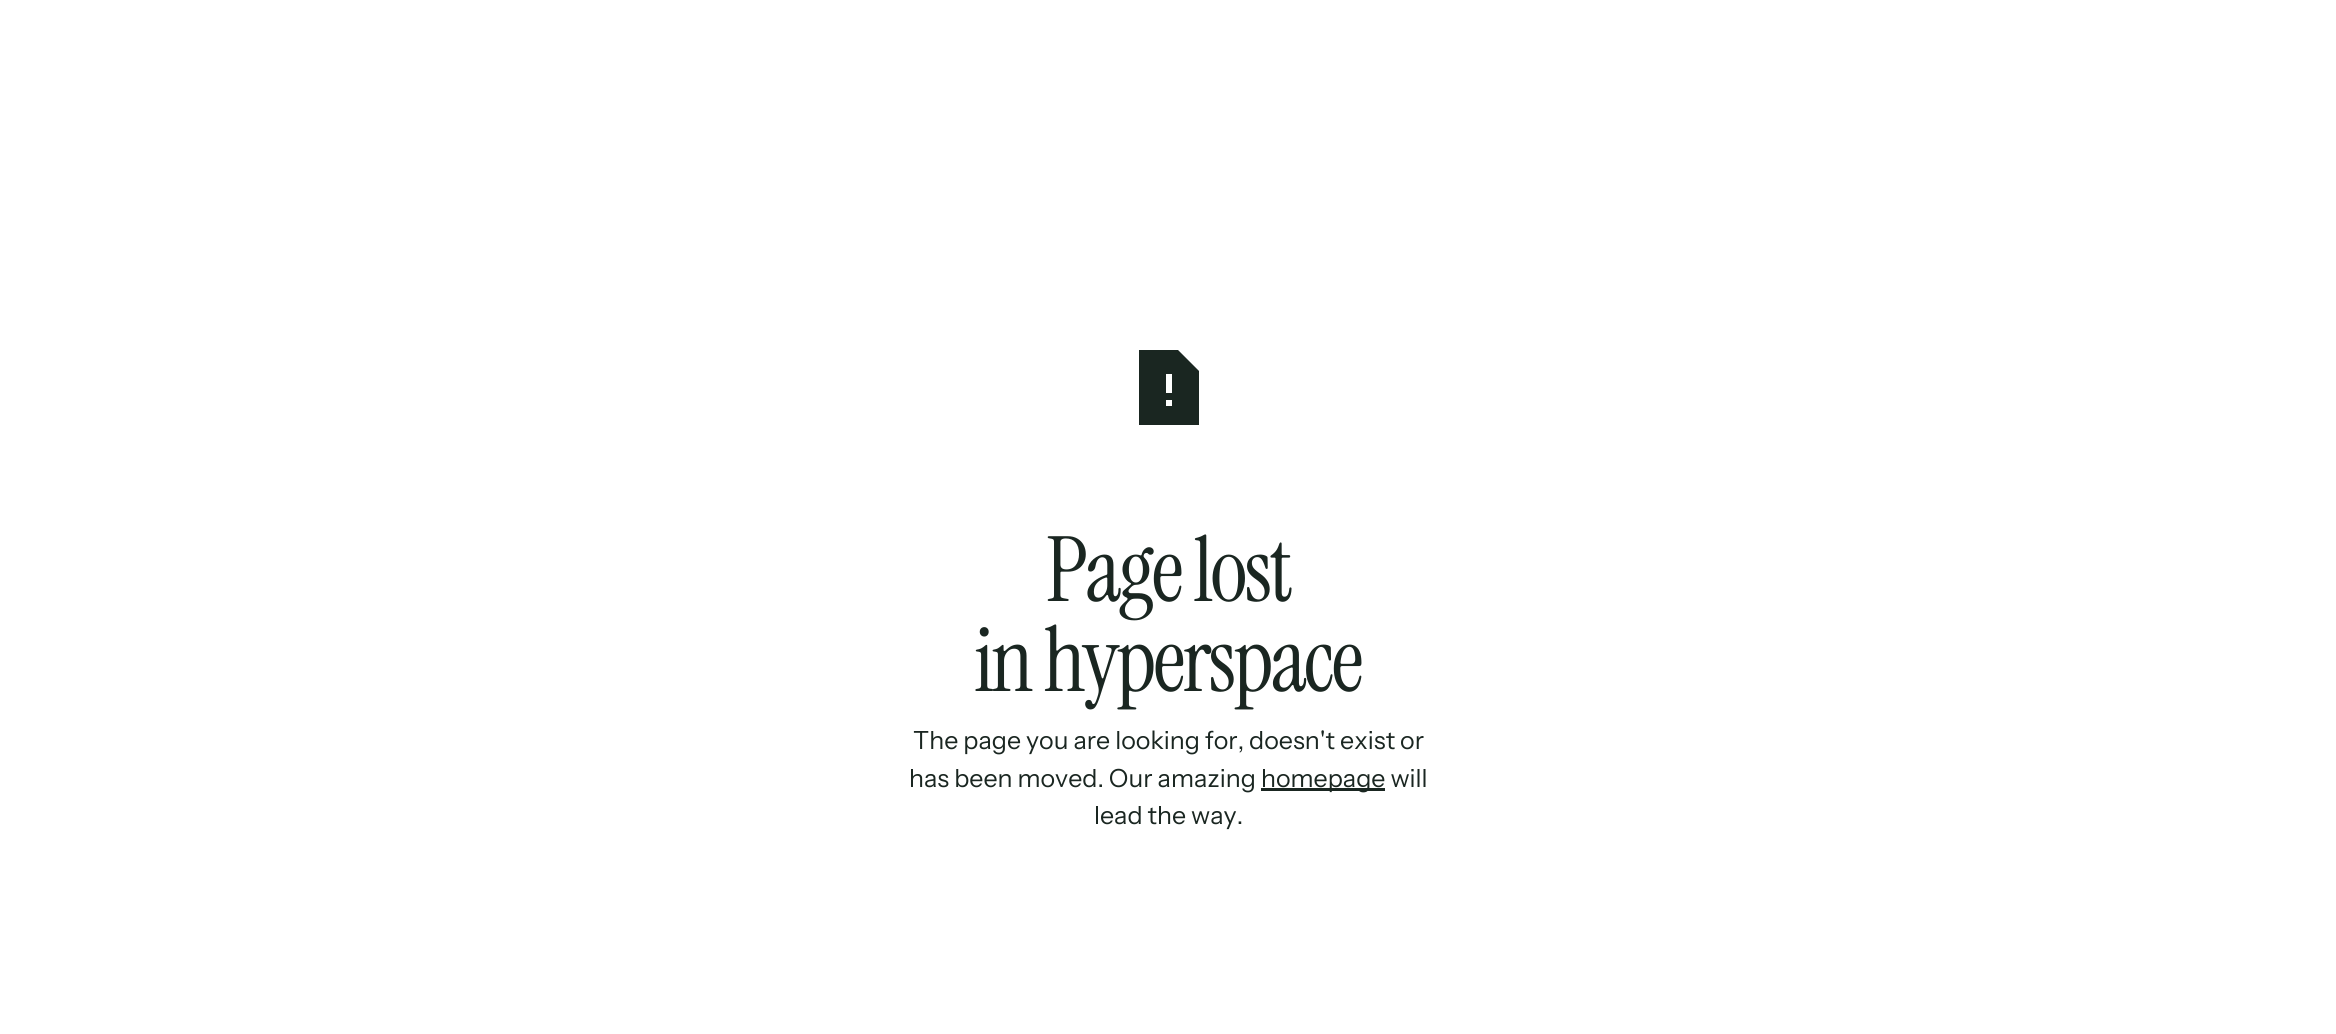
#include <cairo.h>
#include <math.h>
#include <stddef.h>


static void spaced_text(cairo_t *cr, double x, double y, const char *s, double letter, double word) {
    cairo_move_to(cr, x, y);
    while (*s) {
        char ch[5] = {0};
        int n = 0;
        do ch[n++] = *s++; while ((*s & 0xC0) == 0x80);
        cairo_show_text(cr, ch);
        cairo_rel_move_to(cr, letter + word * (*ch == ' '), 0);
    }
}

int main(void) {
    cairo_surface_t *surface = cairo_image_surface_create(CAIRO_FORMAT_RGB24, 2336, 1034);
    cairo_t *cr = cairo_create(surface);
    cairo_font_options_t *options = cairo_font_options_create();
    cairo_font_options_set_hint_metrics(options, CAIRO_HINT_METRICS_OFF);
    cairo_font_options_set_hint_style(options, CAIRO_HINT_STYLE_NONE);
    cairo_set_font_options(cr, options);
    cairo_set_miter_limit(cr, 4);
    cairo_set_source_rgb(cr, 1, 1, 1);
    cairo_paint(cr);
    cairo_set_source_rgb(cr, 0.102, 0.149, 0.129);
    cairo_set_fill_rule(cr, CAIRO_FILL_RULE_EVEN_ODD);
    cairo_new_path(cr);
    cairo_move_to(cr, 1139, 350);
    cairo_line_to(cr, 1178, 350);
    cairo_line_to(cr, 1199, 371);
    cairo_line_to(cr, 1199, 425);
    cairo_line_to(cr, 1139, 425);
    cairo_close_path(cr);
    cairo_move_to(cr, 1166, 374);
    cairo_line_to(cr, 1172, 374);
    cairo_line_to(cr, 1172, 393);
    cairo_line_to(cr, 1166, 393);
    cairo_close_path(cr);
    cairo_move_to(cr, 1166, 400);
    cairo_line_to(cr, 1172, 400);
    cairo_line_to(cr, 1172, 406);
    cairo_line_to(cr, 1166, 406);
    cairo_close_path(cr);
    cairo_fill(cr);
    cairo_select_font_face(cr, "Instrument Serif", CAIRO_FONT_SLANT_NORMAL, CAIRO_FONT_WEIGHT_NORMAL);
    cairo_set_font_size(cr, 90);
    spaced_text(cr, 1046, 601, "Page lost", -2.75, 0);
    spaced_text(cr, 974, 691, "in hyperspace", -2.75, 0);
    cairo_select_font_face(cr, "Instrument Sans", CAIRO_FONT_SLANT_NORMAL, CAIRO_FONT_WEIGHT_NORMAL);
    cairo_set_font_size(cr, 25);
    cairo_move_to(cr, 913, 749);
    cairo_show_text(cr, "The page you are looking for, doesn't exist or");
    cairo_move_to(cr, 909, 787);
    cairo_show_text(cr, "has been moved. Our amazing");
    cairo_rectangle(cr, 1261, 788, 124, 3);
    cairo_fill(cr);
    cairo_move_to(cr, 1261, 787);
    cairo_show_text(cr, "homepage will");
    cairo_move_to(cr, 1094, 824);
    cairo_show_text(cr, "lead the way.");
    cairo_surface_write_to_png(surface, "page.png");
    cairo_font_options_destroy(options);
    cairo_destroy(cr);
    cairo_surface_destroy(surface);
    return 0;
}
